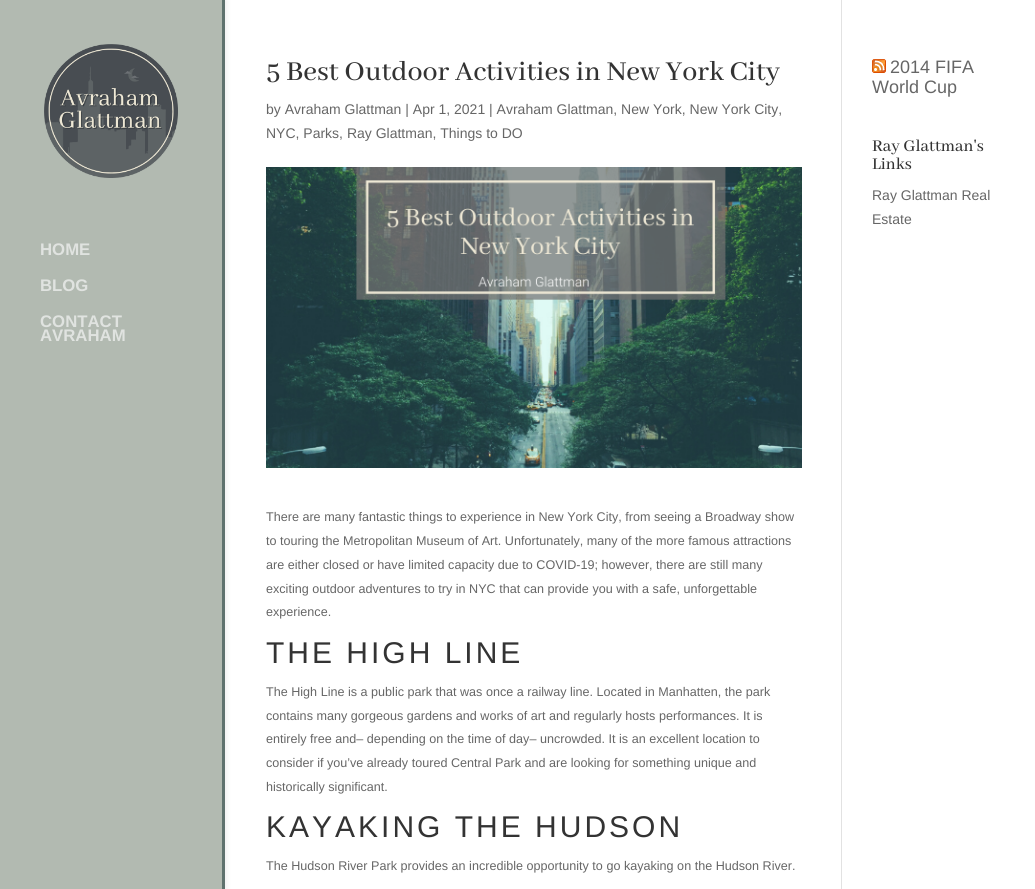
#include <cairo.h>
#include <math.h>
#include <stddef.h>


static void spaced_text(cairo_t *cr, double x, double y, const char *s, double letter, double word) {
    cairo_move_to(cr, x, y);
    while (*s) {
        char ch[5] = {0};
        int n = 0;
        do ch[n++] = *s++; while ((*s & 0xC0) == 0x80);
        cairo_show_text(cr, ch);
        cairo_rel_move_to(cr, letter + word * (*ch == ' '), 0);
    }
}

static void round_rect(cairo_t *cr, double x, double y, double w, double h, double r) {
    cairo_new_sub_path(cr);
    cairo_arc(cr, x + w - r, y + h - r, r, 0, M_PI / 2);
    cairo_arc(cr, x + r, y + h - r, r, M_PI / 2, M_PI);
    cairo_arc(cr, x + r, y + r, r, M_PI, 1.5 * M_PI);
    cairo_arc(cr, x + w - r, y + r, r, 1.5 * M_PI, 2 * M_PI);
    cairo_close_path(cr);
}

static void shadow(cairo_t *cr, double x, double y, double w, double h, double r, double blur, double alpha) {
    cairo_push_group_with_content(cr, CAIRO_CONTENT_ALPHA);
    cairo_set_operator(cr, CAIRO_OPERATOR_SOURCE);
    for (int i = 15; i >= -15 && fmin(w, h) + blur * i / 3 > 0; i -= 2) {
        double e = blur * i / 6;
        cairo_set_source_rgba(cr, 0, 0, 0, alpha * erfc((i - 1) / 8.5) / 2);
        round_rect(cr, x - e, y - e, w + 2 * e, h + 2 * e, fmax(0, fmin(r + e + blur * .6, fmin(w, h) / 2 + e)));
        cairo_fill(cr);
    }
    cairo_pattern_t *soft = cairo_pop_group(cr);
    cairo_mask(cr, soft);
    cairo_pattern_destroy(soft);
}

static void picture(cairo_t *cr, const char *path, double x, double y, double w, double h) {
    cairo_surface_t *image = cairo_image_surface_create_from_png(path);
    cairo_save(cr);
    cairo_set_source_surface(cr, image, x, y);
    cairo_rectangle(cr, x, y, w, h);
    cairo_fill(cr);
    cairo_restore(cr);
    cairo_surface_destroy(image);
}

int main(void) {
    cairo_surface_t *surface = cairo_image_surface_create(CAIRO_FORMAT_RGB24, 1035, 889);
    cairo_t *cr = cairo_create(surface);
    cairo_font_options_t *options = cairo_font_options_create();
    cairo_font_options_set_hint_metrics(options, CAIRO_HINT_METRICS_OFF);
    cairo_font_options_set_hint_style(options, CAIRO_HINT_STYLE_NONE);
    cairo_set_font_options(cr, options);
    cairo_set_miter_limit(cr, 4);
    cairo_set_source_rgb(cr, 1, 1, 1);
    cairo_paint(cr);
    cairo_set_source_rgb(cr, 0, 0, 0);
    shadow(cr, 0, 0, 225, 889, 0, 3.5, 0.1);
    cairo_set_source_rgb(cr, 0.698, 0.729, 0.694);
    cairo_rectangle(cr, 0, 0, 222, 889);
    cairo_fill(cr);
    cairo_set_source_rgb(cr, 0.373, 0.447, 0.431);
    cairo_rectangle(cr, 222, 0, 3, 889);
    cairo_fill(cr);
    picture(cr, "img1.png", 44, 44, 134, 134);
    cairo_select_font_face(cr, "Liberation Sans", CAIRO_FONT_SLANT_NORMAL, CAIRO_FONT_WEIGHT_BOLD);
    cairo_set_font_size(cr, 16.75);
    cairo_set_source_rgb(cr, 0.878, 0.89, 0.878);
    cairo_move_to(cr, 40, 255);
    cairo_show_text(cr, "HOME");
    cairo_move_to(cr, 40, 291);
    cairo_show_text(cr, "BLOG");
    cairo_move_to(cr, 40, 327);
    cairo_show_text(cr, "CONTACT");
    cairo_move_to(cr, 40, 341);
    cairo_show_text(cr, "AVRAHAM");
    cairo_set_source_rgb(cr, 0.886, 0.886, 0.886);
    cairo_rectangle(cr, 841, 0, 1, 889);
    cairo_fill(cr);
    cairo_select_font_face(cr, "Abhaya Libre Medium Medium", CAIRO_FONT_SLANT_NORMAL, CAIRO_FONT_WEIGHT_NORMAL);
    cairo_set_font_size(cr, 30);
    cairo_set_source_rgb(cr, 0.2, 0.2, 0.2);
    cairo_move_to(cr, 266, 80);
    cairo_show_text(cr, "5 Best Outdoor Activities in New York City");
    cairo_select_font_face(cr, "Liberation Sans", CAIRO_FONT_SLANT_NORMAL, CAIRO_FONT_WEIGHT_NORMAL);
    cairo_set_font_size(cr, 14);
    cairo_set_source_rgb(cr, 0.4, 0.4, 0.4);
    cairo_move_to(cr, 266, 114);
    cairo_show_text(cr, "by Avraham Glattman | Apr 1, 2021 | Avraham Glattman, New York, New York City,");
    cairo_move_to(cr, 266, 138);
    cairo_show_text(cr, "NYC, Parks, Ray Glattman, Things to DO");
    picture(cr, "img2.png", 266, 167, 536, 301);
    cairo_set_font_size(cr, 12.6);
    cairo_move_to(cr, 266, 521);
    cairo_show_text(cr, "There are many fantastic things to experience in New York City, from seeing a Broadway show");
    cairo_move_to(cr, 266, 545);
    cairo_show_text(cr, "to touring the Metropolitan Museum of Art. Unfortunately, many of the more famous attractions");
    cairo_move_to(cr, 266, 569);
    cairo_show_text(cr, "are either closed or have limited capacity due to COVID-19; however, there are still many");
    cairo_move_to(cr, 266, 593);
    cairo_show_text(cr, "exciting outdoor adventures to try in NYC that can provide you with a safe, unforgettable");
    cairo_move_to(cr, 266, 616);
    cairo_show_text(cr, "experience.");
    cairo_set_font_size(cr, 30);
    cairo_set_source_rgb(cr, 0.2, 0.2, 0.2);
    spaced_text(cr, 266, 663, "THE HIGH LINE", 3, 0);
    cairo_set_font_size(cr, 12.6);
    cairo_set_source_rgb(cr, 0.4, 0.4, 0.4);
    cairo_move_to(cr, 266, 696);
    cairo_show_text(cr, "The High Line is a public park that was once a railway line. Located in Manhatten, the park");
    cairo_move_to(cr, 266, 720);
    cairo_show_text(cr, "contains many gorgeous gardens and works of art and regularly hosts performances. It is");
    cairo_move_to(cr, 266, 743);
    cairo_show_text(cr, "entirely free and– depending on the time of day– uncrowded. It is an excellent location to");
    cairo_move_to(cr, 266, 767);
    cairo_show_text(cr, "consider if you’ve already toured Central Park and are looking for something unique and");
    cairo_move_to(cr, 266, 791);
    cairo_show_text(cr, "historically significant.");
    cairo_set_font_size(cr, 30);
    cairo_set_source_rgb(cr, 0.2, 0.2, 0.2);
    spaced_text(cr, 266, 837, "KAYAKING THE HUDSON", 3, 0);
    cairo_set_font_size(cr, 12.6);
    cairo_set_source_rgb(cr, 0.4, 0.4, 0.4);
    cairo_move_to(cr, 266, 870);
    cairo_show_text(cr, "The Hudson River Park provides an incredible opportunity to go kayaking on the Hudson River.");
    picture(cr, "img3.png", 872, 59, 14, 14);
    cairo_set_font_size(cr, 18);
    cairo_move_to(cr, 890, 73);
    cairo_show_text(cr, "2014 FIFA");
    cairo_move_to(cr, 872, 93);
    cairo_show_text(cr, "World Cup");
    cairo_select_font_face(cr, "Abhaya Libre Medium Medium", CAIRO_FONT_SLANT_NORMAL, CAIRO_FONT_WEIGHT_NORMAL);
    cairo_set_source_rgb(cr, 0.2, 0.2, 0.2);
    cairo_move_to(cr, 872, 151);
    cairo_show_text(cr, "Ray Glattman's");
    cairo_move_to(cr, 872, 169);
    cairo_show_text(cr, "Links");
    cairo_select_font_face(cr, "Liberation Sans", CAIRO_FONT_SLANT_NORMAL, CAIRO_FONT_WEIGHT_NORMAL);
    cairo_set_font_size(cr, 14);
    cairo_set_source_rgb(cr, 0.4, 0.4, 0.4);
    cairo_move_to(cr, 872, 200);
    cairo_show_text(cr, "Ray Glattman Real");
    cairo_move_to(cr, 872, 224);
    cairo_show_text(cr, "Estate");
    cairo_surface_write_to_png(surface, "page.png");
    cairo_font_options_destroy(options);
    cairo_destroy(cr);
    cairo_surface_destroy(surface);
    return 0;
}
